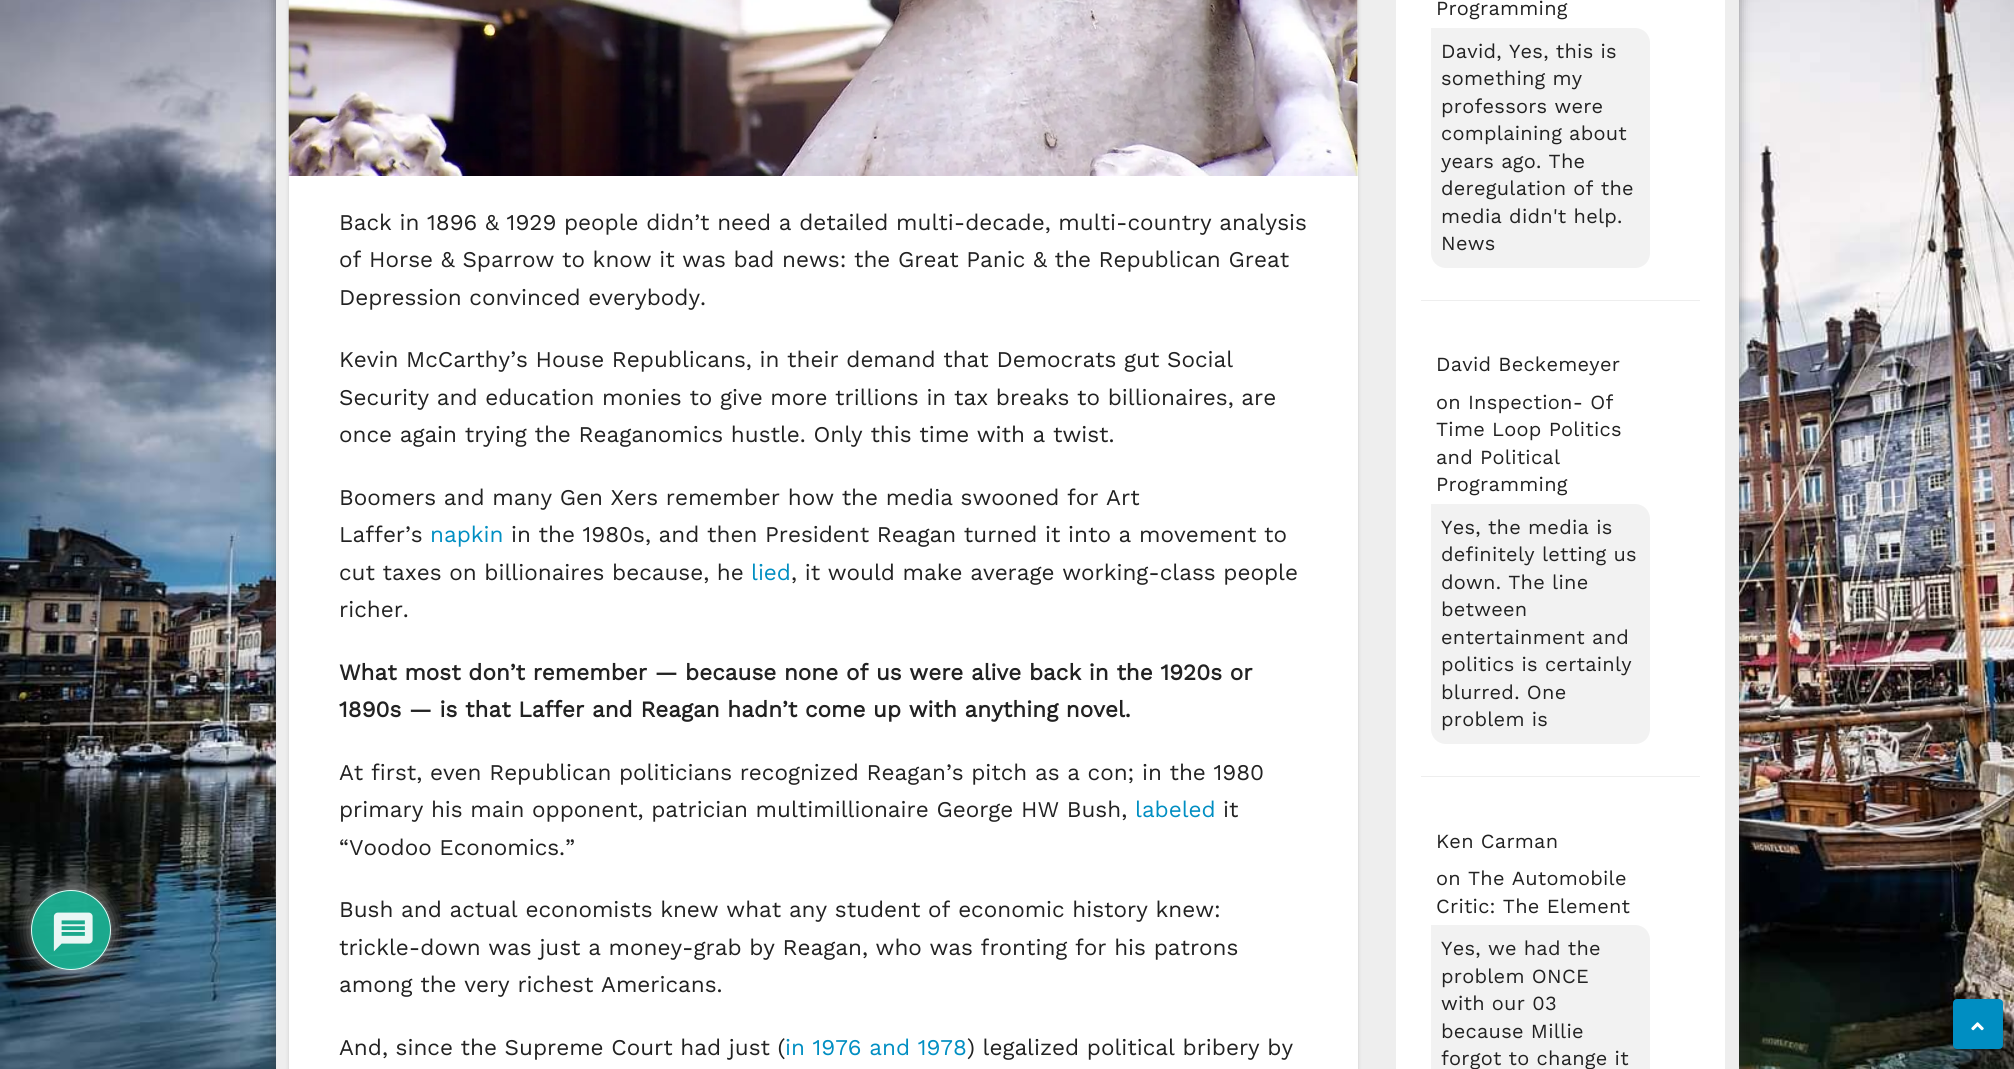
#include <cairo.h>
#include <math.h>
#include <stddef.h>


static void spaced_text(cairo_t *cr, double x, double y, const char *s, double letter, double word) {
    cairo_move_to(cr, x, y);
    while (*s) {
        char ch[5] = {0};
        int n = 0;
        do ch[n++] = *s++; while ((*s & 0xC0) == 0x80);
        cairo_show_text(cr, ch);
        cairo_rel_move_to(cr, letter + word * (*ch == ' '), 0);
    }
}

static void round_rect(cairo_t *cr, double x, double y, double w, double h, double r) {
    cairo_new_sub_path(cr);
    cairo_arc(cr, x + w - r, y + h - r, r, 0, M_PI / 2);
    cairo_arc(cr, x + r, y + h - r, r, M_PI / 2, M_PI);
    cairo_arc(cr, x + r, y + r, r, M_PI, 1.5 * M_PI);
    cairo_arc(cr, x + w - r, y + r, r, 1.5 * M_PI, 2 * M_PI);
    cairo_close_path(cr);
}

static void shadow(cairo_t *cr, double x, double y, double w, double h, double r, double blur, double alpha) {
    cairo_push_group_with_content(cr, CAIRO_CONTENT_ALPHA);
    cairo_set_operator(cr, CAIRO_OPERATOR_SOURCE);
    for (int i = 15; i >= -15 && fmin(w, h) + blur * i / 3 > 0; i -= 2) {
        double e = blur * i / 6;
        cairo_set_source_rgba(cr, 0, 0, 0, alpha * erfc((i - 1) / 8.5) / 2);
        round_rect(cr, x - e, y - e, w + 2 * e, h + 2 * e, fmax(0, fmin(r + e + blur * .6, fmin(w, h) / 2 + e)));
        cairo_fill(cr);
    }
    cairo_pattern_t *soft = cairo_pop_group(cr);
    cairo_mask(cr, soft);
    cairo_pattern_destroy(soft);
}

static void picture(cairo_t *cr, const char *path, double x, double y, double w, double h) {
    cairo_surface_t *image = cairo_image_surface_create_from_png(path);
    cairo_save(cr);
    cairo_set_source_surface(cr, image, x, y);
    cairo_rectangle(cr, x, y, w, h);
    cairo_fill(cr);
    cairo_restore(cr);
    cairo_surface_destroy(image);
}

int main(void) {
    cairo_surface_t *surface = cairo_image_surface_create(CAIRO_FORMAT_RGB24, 2014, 1069);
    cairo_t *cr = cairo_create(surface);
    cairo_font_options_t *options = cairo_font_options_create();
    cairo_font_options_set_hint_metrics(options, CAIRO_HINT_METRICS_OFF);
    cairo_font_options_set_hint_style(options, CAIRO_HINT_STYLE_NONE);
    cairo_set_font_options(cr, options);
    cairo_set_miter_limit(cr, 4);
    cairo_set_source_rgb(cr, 1, 1, 1);
    cairo_paint(cr);
    picture(cr, "img1.png", 0, 0, 2014, 1069);
    cairo_set_source_rgb(cr, 0.188, 0.188, 0.188);
    shadow(cr, 276, -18, 1463, 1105, 0, 6, 0.5);
    cairo_save(cr);
    cairo_set_fill_rule(cr, CAIRO_FILL_RULE_EVEN_ODD);
    cairo_new_path(cr);
    cairo_move_to(cr, 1, 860);
    cairo_line_to(cr, 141, 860);
    cairo_line_to(cr, 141, 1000);
    cairo_line_to(cr, 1, 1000);
    cairo_close_path(cr);
    cairo_move_to(cr, 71, 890);
    cairo_curve_to(cr, 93, 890, 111, 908, 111, 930);
    cairo_curve_to(cr, 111, 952, 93, 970, 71, 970);
    cairo_curve_to(cr, 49, 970, 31, 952, 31, 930);
    cairo_curve_to(cr, 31, 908, 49, 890, 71, 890);
    cairo_close_path(cr);
    cairo_clip(cr);
    cairo_set_source_rgb(cr, 0.667, 0.667, 0.667);
    shadow(cr, 31, 890, 80, 80, 40, 9.5, 0.9);
    cairo_restore(cr);
    cairo_set_source_rgba(cr, 0.114, 0.725, 0.604, 0.9);
    cairo_arc(cr, 71, 930, 40, 0, 2 * M_PI);
    cairo_fill(cr);
    cairo_arc(cr, 71, 930, 39.5, 0, 2 * M_PI);
    cairo_set_source_rgba(cr, 1, 1, 1, 0.9);
    cairo_set_line_width(cr, 1);
    cairo_stroke(cr);
    picture(cr, "img2.png", 53, 912, 40, 40);
    cairo_set_source_rgb(cr, 0.933, 0.933, 0.933);
    cairo_rectangle(cr, 276, 0, 1463, 1069);
    cairo_fill(cr);
    cairo_set_source_rgb(cr, 0, 0, 0);
    shadow(cr, 289, -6, 1069, 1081, 0, 2, 0.15);
    cairo_set_source_rgb(cr, 1, 1, 1);
    cairo_rectangle(cr, 289, 0, 1069, 1069);
    cairo_fill(cr);
    picture(cr, "img3.png", 288, 0, 1070, 176);
    cairo_select_font_face(cr, "Work Sans", CAIRO_FONT_SLANT_NORMAL, CAIRO_FONT_WEIGHT_NORMAL);
    cairo_set_font_size(cr, 22.5);
    cairo_set_source_rgb(cr, 0.133, 0.133, 0.133);
    cairo_move_to(cr, 339, 230);
    cairo_show_text(cr, "Back in 1896 & 1929 people didn’t need a detailed multi-decade, multi-country analysis");
    cairo_move_to(cr, 339, 267);
    cairo_show_text(cr, "of Horse & Sparrow to know it was bad news: the Great Panic & the Republican Great");
    cairo_move_to(cr, 339, 305);
    cairo_show_text(cr, "Depression convinced everybody.");
    cairo_move_to(cr, 339, 367);
    cairo_show_text(cr, "Kevin McCarthy’s House Republicans, in their demand that Democrats gut Social");
    cairo_move_to(cr, 339, 405);
    cairo_show_text(cr, "Security and education monies to give more trillions in tax breaks to billionaires, are");
    cairo_move_to(cr, 339, 442);
    cairo_show_text(cr, "once again trying the Reaganomics hustle. Only this time with a twist.");
    cairo_move_to(cr, 339, 505);
    cairo_show_text(cr, "Boomers and many Gen Xers remember how the media swooned for Art");
    cairo_move_to(cr, 339, 542);
    cairo_show_text(cr, "Laffer’s");
    cairo_set_source_rgb(cr, 0, 0.557, 0.761);
    cairo_move_to(cr, 430, 542);
    cairo_show_text(cr, "napkin");
    cairo_set_source_rgb(cr, 0.133, 0.133, 0.133);
    cairo_move_to(cr, 511, 542);
    cairo_show_text(cr, "in the 1980s, and then President Reagan turned it into a movement to");
    cairo_move_to(cr, 339, 580);
    cairo_show_text(cr, "cut taxes on billionaires because, he");
    cairo_set_source_rgb(cr, 0, 0.557, 0.761);
    cairo_move_to(cr, 751, 580);
    cairo_show_text(cr, "lied");
    cairo_set_source_rgb(cr, 0.133, 0.133, 0.133);
    cairo_move_to(cr, 791, 580);
    cairo_show_text(cr, ", it would make average working-class people");
    cairo_move_to(cr, 339, 617);
    cairo_show_text(cr, "richer.");
    cairo_select_font_face(cr, "Work Sans", CAIRO_FONT_SLANT_NORMAL, CAIRO_FONT_WEIGHT_BOLD);
    cairo_move_to(cr, 339, 680);
    cairo_show_text(cr, "What most don’t remember — because none of us were alive back in the 1920s or");
    cairo_move_to(cr, 339, 717);
    cairo_show_text(cr, "1890s — is that Laffer and Reagan hadn’t come up with anything novel.");
    cairo_select_font_face(cr, "Work Sans", CAIRO_FONT_SLANT_NORMAL, CAIRO_FONT_WEIGHT_NORMAL);
    cairo_move_to(cr, 339, 780);
    cairo_show_text(cr, "At first, even Republican politicians recognized Reagan’s pitch as a con; in the 1980");
    cairo_move_to(cr, 339, 817);
    cairo_show_text(cr, "primary his main opponent, patrician multimillionaire George HW Bush,");
    cairo_set_source_rgb(cr, 0, 0.557, 0.761);
    cairo_move_to(cr, 1135, 817);
    cairo_show_text(cr, "labeled");
    cairo_set_source_rgb(cr, 0.133, 0.133, 0.133);
    cairo_move_to(cr, 1223, 817);
    cairo_show_text(cr, "it");
    cairo_move_to(cr, 339, 855);
    cairo_show_text(cr, "“Voodoo Economics.”");
    cairo_move_to(cr, 339, 917);
    cairo_show_text(cr, "Bush and actual economists knew what any student of economic history knew:");
    cairo_move_to(cr, 339, 955);
    cairo_show_text(cr, "trickle-down was just a money-grab by Reagan, who was fronting for his patrons");
    cairo_move_to(cr, 339, 992);
    cairo_show_text(cr, "among the very richest Americans.");
    cairo_move_to(cr, 339, 1055);
    cairo_show_text(cr, "And, since the Supreme Court had just (");
    cairo_set_source_rgb(cr, 0, 0.557, 0.761);
    cairo_move_to(cr, 785, 1055);
    cairo_show_text(cr, "in 1976 and 1978");
    cairo_set_source_rgb(cr, 0.133, 0.133, 0.133);
    cairo_move_to(cr, 967, 1055);
    cairo_show_text(cr, ") legalized political bribery by");
    cairo_set_source_rgb(cr, 1, 1, 1);
    cairo_rectangle(cr, 1396, 0, 329, 1069);
    cairo_fill(cr);
    cairo_set_source_rgb(cr, 0.933, 0.933, 0.933);
    cairo_rectangle(cr, 1421, 300, 279, 1);
    cairo_fill(cr);
    cairo_set_font_size(cr, 20);
    cairo_set_source_rgb(cr, 0.133, 0.133, 0.133);
    spaced_text(cr, 1436, 15, "Programming", 0.25, 0);
    cairo_set_source_rgb(cr, 0.949, 0.949, 0.949);
    cairo_new_path(cr);
    cairo_move_to(cr, 1431, 28);
    cairo_line_to(cr, 1635, 28);
    cairo_curve_to(cr, 1643.5, 28, 1650, 34.5, 1650, 43);
    cairo_line_to(cr, 1650, 253);
    cairo_curve_to(cr, 1650, 261.5, 1643.5, 268, 1635, 268);
    cairo_line_to(cr, 1446, 268);
    cairo_curve_to(cr, 1437.5, 268, 1431, 261.5, 1431, 253);
    cairo_close_path(cr);
    cairo_fill(cr);
    cairo_set_source_rgb(cr, 0.133, 0.133, 0.133);
    spaced_text(cr, 1441, 58, "David, Yes, this is", 0.25, 0);
    spaced_text(cr, 1441, 85, "something my", 0.25, 0);
    spaced_text(cr, 1441, 113, "professors were", 0.25, 0);
    spaced_text(cr, 1441, 140, "complaining about", 0.25, 0);
    spaced_text(cr, 1441, 168, "years ago. The", 0.25, 0);
    spaced_text(cr, 1441, 195, "deregulation of the", 0.25, 0);
    spaced_text(cr, 1441, 223, "media didn't help.", 0.25, 0);
    spaced_text(cr, 1441, 250, "News", 0.25, 0);
    cairo_set_source_rgb(cr, 0.933, 0.933, 0.933);
    cairo_rectangle(cr, 1421, 776, 279, 1);
    cairo_fill(cr);
    cairo_set_source_rgb(cr, 0.133, 0.133, 0.133);
    spaced_text(cr, 1436, 371, "David Beckemeyer", 0.25, 0);
    spaced_text(cr, 1436, 409, "on Inspection- Of", 0.25, 0);
    spaced_text(cr, 1436, 436, "Time Loop Politics", 0.25, 0);
    spaced_text(cr, 1436, 464, "and Political", 0.25, 0);
    spaced_text(cr, 1436, 491, "Programming", 0.25, 0);
    cairo_set_source_rgb(cr, 0.949, 0.949, 0.949);
    cairo_new_path(cr);
    cairo_move_to(cr, 1431, 504);
    cairo_line_to(cr, 1635, 504);
    cairo_curve_to(cr, 1643.5, 504, 1650, 510.5, 1650, 519);
    cairo_line_to(cr, 1650, 729);
    cairo_curve_to(cr, 1650, 737.5, 1643.5, 744, 1635, 744);
    cairo_line_to(cr, 1446, 744);
    cairo_curve_to(cr, 1437.5, 744, 1431, 737.5, 1431, 729);
    cairo_close_path(cr);
    cairo_fill(cr);
    cairo_set_source_rgb(cr, 0.133, 0.133, 0.133);
    spaced_text(cr, 1441, 534, "Yes, the media is", 0.25, 0);
    spaced_text(cr, 1441, 561, "definitely letting us", 0.25, 0);
    spaced_text(cr, 1441, 589, "down. The line", 0.25, 0);
    spaced_text(cr, 1441, 616, "between", 0.25, 0);
    spaced_text(cr, 1441, 644, "entertainment and", 0.25, 0);
    spaced_text(cr, 1441, 671, "politics is certainly", 0.25, 0);
    spaced_text(cr, 1441, 699, "blurred. One", 0.25, 0);
    spaced_text(cr, 1441, 726, "problem is", 0.25, 0);
    spaced_text(cr, 1436, 848, "Ken Carman", 0.25, 0);
    spaced_text(cr, 1436, 885, "on The Automobile", 0.25, 0);
    spaced_text(cr, 1436, 913, "Critic: The Element", 0.25, 0);
    cairo_set_source_rgb(cr, 0.949, 0.949, 0.949);
    cairo_new_path(cr);
    cairo_move_to(cr, 1431, 925);
    cairo_line_to(cr, 1635, 925);
    cairo_curve_to(cr, 1643.5, 925, 1650, 931.5, 1650, 940);
    cairo_line_to(cr, 1650, 1069);
    cairo_curve_to(cr, 1650, 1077.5, 1643.5, 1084, 1635, 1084);
    cairo_line_to(cr, 1446, 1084);
    cairo_curve_to(cr, 1437.5, 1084, 1431, 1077.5, 1431, 1069);
    cairo_close_path(cr);
    cairo_fill(cr);
    cairo_set_source_rgb(cr, 0.133, 0.133, 0.133);
    spaced_text(cr, 1441, 955, "Yes, we had the", 0.25, 0);
    spaced_text(cr, 1441, 983, "problem ONCE", 0.25, 0);
    spaced_text(cr, 1441, 1010, "with our 03", 0.25, 0);
    spaced_text(cr, 1441, 1038, "because Millie", 0.25, 0);
    spaced_text(cr, 1441, 1065, "forgot to change it", 0.25, 0);
    cairo_set_source_rgb(cr, 0, 0, 0);
    shadow(cr, 1953, 1000, 50, 50, 4, 3, 0.12);
    shadow(cr, 1955, 1005, 45, 45, 1, 0.5, 0.2);
    shadow(cr, 1953, 1001, 50, 50, 4, 1, 0.14);
    cairo_set_source_rgb(cr, 0, 0.557, 0.761);
    round_rect(cr, 1954.5, 1000.5, 47, 47, 2.5);
    cairo_fill_preserve(cr);
    cairo_set_line_width(cr, 3);
    cairo_stroke(cr);
    picture(cr, "img4.png", 1971, 1022, 13, 9);
    cairo_surface_write_to_png(surface, "page.png");
    cairo_font_options_destroy(options);
    cairo_destroy(cr);
    cairo_surface_destroy(surface);
    return 0;
}
